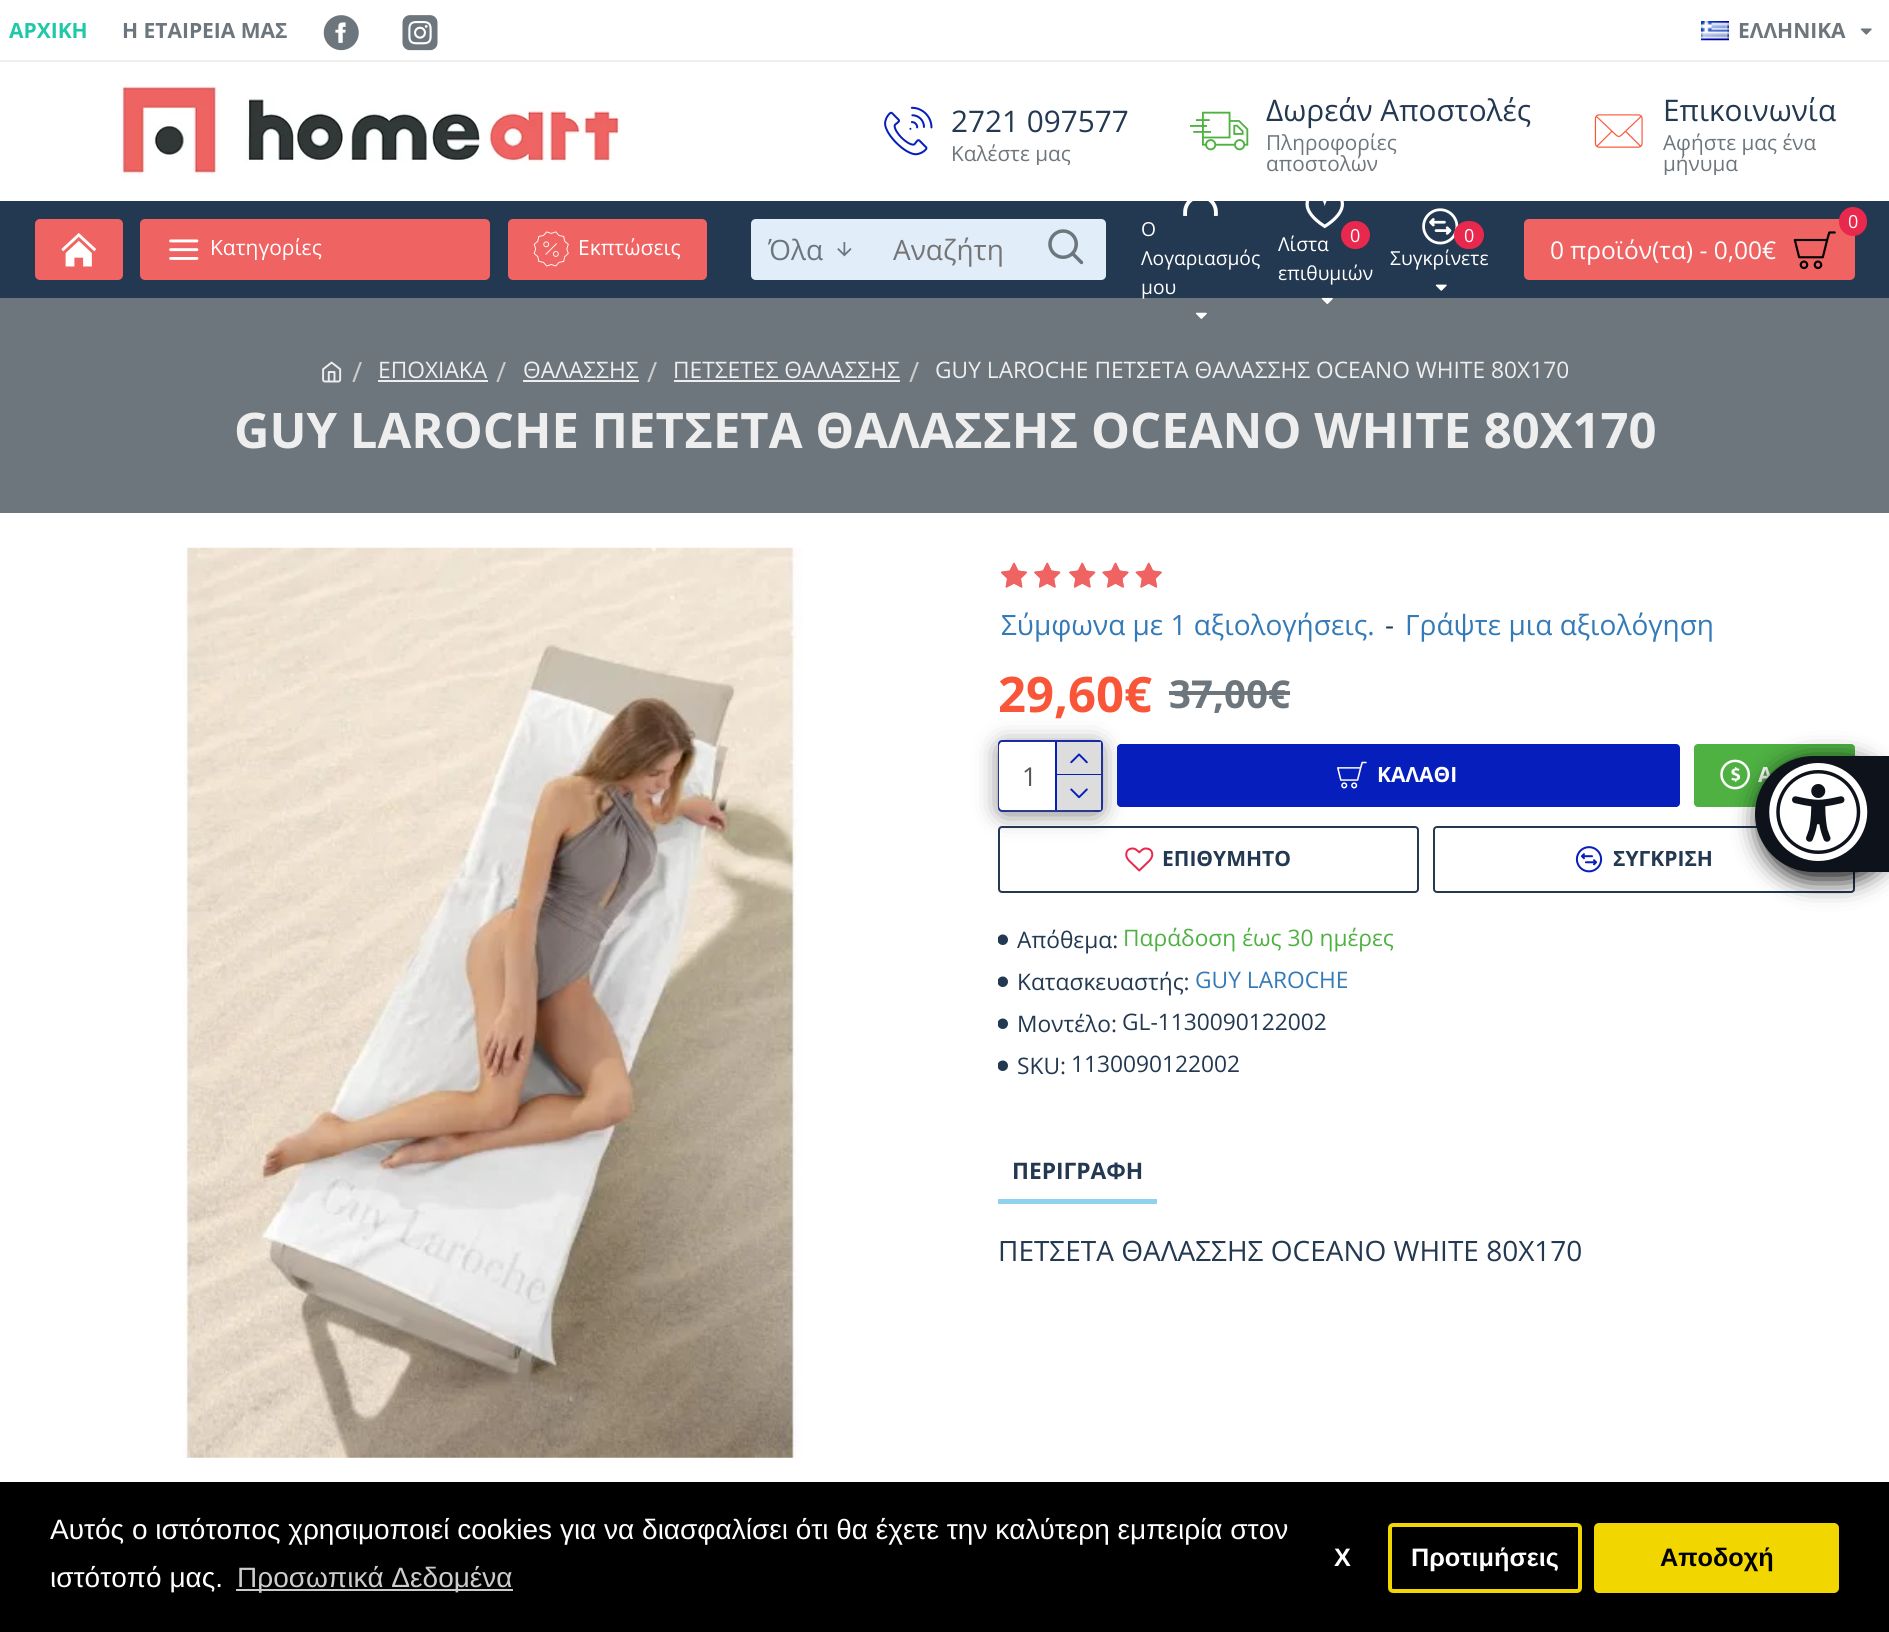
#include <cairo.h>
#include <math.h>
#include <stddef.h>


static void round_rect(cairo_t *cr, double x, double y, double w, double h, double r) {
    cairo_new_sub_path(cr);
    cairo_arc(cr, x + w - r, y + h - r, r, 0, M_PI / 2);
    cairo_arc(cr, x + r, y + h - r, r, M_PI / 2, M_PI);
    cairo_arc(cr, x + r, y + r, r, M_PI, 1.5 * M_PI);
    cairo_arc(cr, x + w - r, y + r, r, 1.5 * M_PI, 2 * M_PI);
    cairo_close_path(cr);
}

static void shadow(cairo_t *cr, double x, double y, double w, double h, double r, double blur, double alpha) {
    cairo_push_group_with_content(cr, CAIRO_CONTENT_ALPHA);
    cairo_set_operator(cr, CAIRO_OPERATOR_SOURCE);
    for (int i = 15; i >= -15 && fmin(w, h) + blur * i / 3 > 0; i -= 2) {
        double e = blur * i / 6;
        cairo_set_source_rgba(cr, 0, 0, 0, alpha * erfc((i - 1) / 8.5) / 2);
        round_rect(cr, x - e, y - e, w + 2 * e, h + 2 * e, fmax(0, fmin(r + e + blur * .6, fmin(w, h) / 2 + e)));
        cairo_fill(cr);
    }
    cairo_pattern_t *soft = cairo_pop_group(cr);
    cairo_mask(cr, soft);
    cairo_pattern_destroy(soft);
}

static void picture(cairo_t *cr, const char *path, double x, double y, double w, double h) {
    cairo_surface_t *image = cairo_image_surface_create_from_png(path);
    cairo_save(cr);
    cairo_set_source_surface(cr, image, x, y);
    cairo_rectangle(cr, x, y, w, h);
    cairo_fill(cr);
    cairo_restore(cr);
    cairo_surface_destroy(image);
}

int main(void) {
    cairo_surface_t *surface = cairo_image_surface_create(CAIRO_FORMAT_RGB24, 1889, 1632);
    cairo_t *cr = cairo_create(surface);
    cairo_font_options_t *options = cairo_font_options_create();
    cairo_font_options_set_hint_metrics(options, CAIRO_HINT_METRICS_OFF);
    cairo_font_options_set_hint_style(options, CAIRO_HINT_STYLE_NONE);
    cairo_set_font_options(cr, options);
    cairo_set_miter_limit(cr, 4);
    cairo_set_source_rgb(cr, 1, 1, 1);
    cairo_paint(cr);
    cairo_select_font_face(cr, "Open Sans", CAIRO_FONT_SLANT_NORMAL, CAIRO_FONT_WEIGHT_BOLD);
    cairo_set_font_size(cr, 21);
    cairo_set_source_rgb(cr, 0.129, 0.784, 0.659);
    cairo_move_to(cr, 9, 38);
    cairo_show_text(cr, "ΑΡΧΙΚΗ");
    cairo_set_source_rgb(cr, 0.427, 0.463, 0.49);
    cairo_move_to(cr, 122, 38);
    cairo_show_text(cr, "Η ΕΤΑΙΡΕΙΑ ΜΑΣ");
    picture(cr, "img1.png", 323, 15, 36, 36);
    picture(cr, "img2.png", 402, 15, 36, 36);
    picture(cr, "img3.png", 1701, 21, 28, 20);
    cairo_move_to(cr, 1738, 38);
    cairo_show_text(cr, "ΕΛΛΗΝΙΚΑ");
    picture(cr, "img4.png", 1860, 28, 12, 7);
    picture(cr, "img5.png", 120, 86, 500, 93);
    picture(cr, "img6.png", 884, 106, 49, 50);
    cairo_select_font_face(cr, "Open Sans", CAIRO_FONT_SLANT_NORMAL, CAIRO_FONT_WEIGHT_NORMAL);
    cairo_set_font_size(cr, 29.75);
    cairo_set_source_rgb(cr, 0.137, 0.22, 0.318);
    cairo_move_to(cr, 951, 132);
    cairo_show_text(cr, "2721 097577");
    cairo_save(cr);
    cairo_rectangle(cr, 952, 98, 177, 67);
    cairo_clip(cr);
    cairo_set_font_size(cr, 20.75);
    cairo_set_source_rgb(cr, 0.427, 0.463, 0.49);
    cairo_move_to(cr, 951, 161);
    cairo_show_text(cr, "Καλέστε μας");
    cairo_restore(cr);
    picture(cr, "img7.png", 1190, 111, 59, 40);
    cairo_move_to(cr, 1266, 121);
    cairo_show_text(cr, "Δωρεάν Αποστολές");
    cairo_set_font_size(cr, 20.75);
    cairo_set_source_rgb(cr, 0.427, 0.463, 0.49);
    cairo_move_to(cr, 1266, 150);
    cairo_show_text(cr, "Πληροφορίες");
    cairo_move_to(cr, 1266, 171);
    cairo_show_text(cr, "αποστολών");
    picture(cr, "img8.png", 1594, 114, 49, 34);
    cairo_set_font_size(cr, 29.75);
    cairo_set_source_rgb(cr, 0.137, 0.22, 0.318);
    cairo_move_to(cr, 1663, 121);
    cairo_show_text(cr, "Επικοινωνία");
    cairo_set_font_size(cr, 20.75);
    cairo_set_source_rgb(cr, 0.427, 0.463, 0.49);
    cairo_move_to(cr, 1663, 150);
    cairo_show_text(cr, "Αφήστε μας ένα");
    cairo_save(cr);
    cairo_rectangle(cr, 1663, 88, 218, 87);
    cairo_clip(cr);
    cairo_move_to(cr, 1663, 171);
    cairo_show_text(cr, "μήνυμα");
    cairo_restore(cr);
    cairo_set_source_rgb(cr, 0.137, 0.22, 0.318);
    cairo_rectangle(cr, 0, 201, 1889, 97);
    cairo_fill(cr);
    cairo_set_source_rgb(cr, 0.937, 0.388, 0.384);
    round_rect(cr, 35, 219, 88, 61, 5);
    cairo_fill(cr);
    picture(cr, "img9.png", 61, 233, 36, 34);
    round_rect(cr, 140, 219, 350, 61, 5);
    cairo_fill(cr);
    picture(cr, "img10.png", 169, 239, 30, 21);
    cairo_set_font_size(cr, 21);
    cairo_set_source_rgb(cr, 1, 1, 1);
    cairo_move_to(cr, 210, 255);
    cairo_show_text(cr, "Κατηγορίες");
    cairo_set_source_rgb(cr, 0.937, 0.388, 0.384);
    round_rect(cr, 508, 219, 199, 61, 5);
    cairo_fill(cr);
    picture(cr, "img11.png", 533, 231, 36, 36);
    cairo_set_source_rgb(cr, 1, 1, 1);
    cairo_move_to(cr, 578, 255);
    cairo_show_text(cr, "Εκπτώσεις");
    cairo_set_source_rgb(cr, 0.882, 0.933, 0.98);
    cairo_new_path(cr);
    cairo_move_to(cr, 756, 219);
    cairo_line_to(cr, 872, 219);
    cairo_line_to(cr, 872, 280);
    cairo_line_to(cr, 756, 280);
    cairo_curve_to(cr, 753, 280, 751, 278, 751, 275);
    cairo_line_to(cr, 751, 224);
    cairo_curve_to(cr, 751, 221, 753, 219, 756, 219);
    cairo_close_path(cr);
    cairo_fill(cr);
    cairo_set_font_size(cr, 28);
    cairo_set_source_rgb(cr, 0.427, 0.463, 0.49);
    cairo_move_to(cr, 768, 260);
    cairo_show_text(cr, "Όλα");
    picture(cr, "img12.png", 837, 242, 15, 15);
    cairo_set_source_rgb(cr, 0.882, 0.933, 0.98);
    cairo_rectangle(cr, 872, 219, 155, 61);
    cairo_fill(cr);
    cairo_set_source_rgb(cr, 0.459, 0.459, 0.459);
    cairo_move_to(cr, 893, 260);
    cairo_show_text(cr, "Αναζήτη");
    cairo_set_source_rgb(cr, 0.882, 0.933, 0.98);
    cairo_new_path(cr);
    cairo_move_to(cr, 1027, 219);
    cairo_line_to(cr, 1101, 219);
    cairo_curve_to(cr, 1104, 219, 1106, 221, 1106, 224);
    cairo_line_to(cr, 1106, 275);
    cairo_curve_to(cr, 1106, 278, 1104, 280, 1101, 280);
    cairo_line_to(cr, 1027, 280);
    cairo_close_path(cr);
    cairo_fill(cr);
    picture(cr, "img13.png", 1048, 229, 36, 36);
    picture(cr, "img14.png", 1183, 201, 35, 15);
    cairo_set_font_size(cr, 19.25);
    cairo_set_source_rgb(cr, 1, 1, 1);
    cairo_move_to(cr, 1141, 236);
    cairo_show_text(cr, "Ο");
    cairo_move_to(cr, 1141, 265);
    cairo_show_text(cr, "Λογαριασμός");
    cairo_set_source_rgb(cr, 0.427, 0.463, 0.49);
    cairo_rectangle(cr, 0, 298, 1889, 215);
    cairo_fill(cr);
    cairo_set_source_rgb(cr, 1, 1, 1);
    cairo_move_to(cr, 1141, 294);
    cairo_show_text(cr, "μου");
    picture(cr, "img15.png", 1195, 312, 12, 7);
    picture(cr, "img16.png", 1305, 201, 39, 28);
    cairo_set_source_rgb(cr, 0.91, 0.157, 0.302);
    round_rect(cr, 1341, 221, 29, 28, 14);
    cairo_fill(cr);
    cairo_set_font_size(cr, 18);
    cairo_set_source_rgb(cr, 1, 1, 1);
    cairo_move_to(cr, 1350, 242);
    cairo_show_text(cr, "0");
    cairo_set_font_size(cr, 19.25);
    cairo_move_to(cr, 1278, 251);
    cairo_show_text(cr, "Λίστα");
    cairo_move_to(cr, 1278, 280);
    cairo_show_text(cr, "επιθυμιών");
    picture(cr, "img17.png", 1321, 297, 12, 8);
    picture(cr, "img18.png", 1422, 208, 37, 37);
    cairo_set_source_rgb(cr, 0.91, 0.157, 0.302);
    round_rect(cr, 1454, 221, 30, 28, 14);
    cairo_fill(cr);
    cairo_set_font_size(cr, 18);
    cairo_set_source_rgb(cr, 1, 1, 1);
    cairo_move_to(cr, 1464, 242);
    cairo_show_text(cr, "0");
    cairo_set_font_size(cr, 19.25);
    cairo_move_to(cr, 1390, 265);
    cairo_show_text(cr, "Συγκρίνετε");
    picture(cr, "img19.png", 1435, 284, 12, 7);
    cairo_set_source_rgb(cr, 0.937, 0.388, 0.384);
    round_rect(cr, 1524, 219, 331, 61, 5);
    cairo_fill(cr);
    cairo_set_source_rgb(cr, 0.91, 0.157, 0.302);
    round_rect(cr, 1839, 207, 28, 29, 14);
    cairo_fill(cr);
    cairo_set_font_size(cr, 18);
    cairo_set_source_rgb(cr, 1, 1, 1);
    cairo_move_to(cr, 1848, 228);
    cairo_show_text(cr, "0");
    cairo_set_font_size(cr, 24.5);
    cairo_move_to(cr, 1550, 259);
    cairo_show_text(cr, "0 προϊόν(τα) - 0,00€");
    picture(cr, "img20.png", 1793, 231, 43, 39);
    cairo_set_source_rgb(cr, 0.933, 0.933, 0.933);
    cairo_rectangle(cr, 0, 60, 1889, 2);
    cairo_fill(cr);
    picture(cr, "img21.png", 322, 361, 20, 22);
    cairo_set_font_size(cr, 28);
    cairo_set_source_rgb(cr, 0.8, 0.8, 0.8);
    cairo_move_to(cr, 352, 382);
    cairo_show_text(cr, "/");
    cairo_set_font_size(cr, 22.75);
    cairo_set_source_rgb(cr, 0.933, 0.933, 0.933);
    cairo_move_to(cr, 378, 378);
    cairo_show_text(cr, "ΕΠΟΧΙΑΚΑ");
    cairo_rectangle(cr, 378, 380, 110, 2);
    cairo_fill(cr);
    cairo_set_font_size(cr, 28);
    cairo_set_source_rgb(cr, 0.8, 0.8, 0.8);
    cairo_move_to(cr, 496, 382);
    cairo_show_text(cr, "/");
    cairo_set_font_size(cr, 22.75);
    cairo_set_source_rgb(cr, 0.933, 0.933, 0.933);
    cairo_move_to(cr, 523, 378);
    cairo_show_text(cr, "ΘΑΛΑΣΣΗΣ");
    cairo_rectangle(cr, 523, 380, 116, 2);
    cairo_fill(cr);
    cairo_set_font_size(cr, 28);
    cairo_set_source_rgb(cr, 0.8, 0.8, 0.8);
    cairo_move_to(cr, 647, 382);
    cairo_show_text(cr, "/");
    cairo_set_font_size(cr, 22.75);
    cairo_set_source_rgb(cr, 0.933, 0.933, 0.933);
    cairo_move_to(cr, 673, 378);
    cairo_show_text(cr, "ΠΕΤΣΕΤΕΣ ΘΑΛΑΣΣΗΣ");
    cairo_rectangle(cr, 674, 380, 226, 2);
    cairo_fill(cr);
    cairo_set_font_size(cr, 28);
    cairo_set_source_rgb(cr, 0.8, 0.8, 0.8);
    cairo_move_to(cr, 909, 382);
    cairo_show_text(cr, "/");
    cairo_set_font_size(cr, 22.75);
    cairo_set_source_rgb(cr, 0.933, 0.933, 0.933);
    cairo_move_to(cr, 935, 378);
    cairo_show_text(cr, "GUY LAROCHE ΠΕΤΣΕΤΑ ΘΑΛΑΣΣΗΣ OCEANO WHITE 80X170");
    cairo_select_font_face(cr, "Open Sans", CAIRO_FONT_SLANT_NORMAL, CAIRO_FONT_WEIGHT_BOLD);
    cairo_set_font_size(cr, 49);
    cairo_move_to(cr, 234, 448);
    cairo_show_text(cr, "GUY LAROCHE ΠΕΤΣΕΤΑ ΘΑΛΑΣΣΗΣ OCEANO WHITE 80X170");
    picture(cr, "img22.png", 183, 547, 620, 911);
    picture(cr, "img23.png", 1001, 562, 26, 26);
    picture(cr, "img24.png", 1001, 562, 26, 26);
    picture(cr, "img25.png", 1034, 562, 27, 26);
    picture(cr, "img26.png", 1034, 562, 27, 26);
    picture(cr, "img25.png", 1069, 562, 27, 26);
    picture(cr, "img26.png", 1069, 562, 27, 26);
    picture(cr, "img27.png", 1102, 562, 27, 26);
    picture(cr, "img28.png", 1102, 562, 27, 26);
    picture(cr, "img29.png", 1135, 562, 27, 26);
    picture(cr, "img30.png", 1135, 562, 27, 26);
    cairo_select_font_face(cr, "Open Sans", CAIRO_FONT_SLANT_NORMAL, CAIRO_FONT_WEIGHT_NORMAL);
    cairo_set_font_size(cr, 28);
    cairo_set_source_rgb(cr, 0.2, 0.478, 0.718);
    cairo_move_to(cr, 1001, 635);
    cairo_show_text(cr, "Σύμφωνα με 1 αξιολογήσεις.");
    cairo_set_source_rgb(cr, 0.137, 0.22, 0.318);
    cairo_move_to(cr, 1385, 635);
    cairo_show_text(cr, "-");
    cairo_set_source_rgb(cr, 0.2, 0.478, 0.718);
    cairo_move_to(cr, 1405, 635);
    cairo_show_text(cr, "Γράψτε μια αξιολόγηση");
    round_rect(cr, 999, 741, 103, 70, 3);
    cairo_set_source_rgb(cr, 0.024, 0.118, 0.733);
    cairo_stroke(cr);
    cairo_set_source_rgb(cr, 0.333, 0.333, 0.333);
    shadow(cr, 1003, 749, 94, 61, 0, 13, 1);
    cairo_select_font_face(cr, "Open Sans", CAIRO_FONT_SLANT_NORMAL, CAIRO_FONT_WEIGHT_BOLD);
    cairo_set_font_size(cr, 49);
    cairo_set_source_rgb(cr, 0.973, 0.337, 0.224);
    cairo_move_to(cr, 998, 712);
    cairo_show_text(cr, "29,60€");
    cairo_set_font_size(cr, 38.5);
    cairo_set_source_rgb(cr, 0.427, 0.463, 0.49);
    cairo_move_to(cr, 1169, 708);
    cairo_show_text(cr, "37,00€");
    cairo_rectangle(cr, 1169, 691, 121, 4);
    cairo_fill(cr);
    cairo_set_source_rgb(cr, 1, 1, 1);
    round_rect(cr, 999, 742, 102, 68, 4);
    cairo_fill(cr);
    cairo_select_font_face(cr, "Open Sans", CAIRO_FONT_SLANT_NORMAL, CAIRO_FONT_WEIGHT_NORMAL);
    cairo_set_font_size(cr, 26);
    cairo_set_source_rgb(cr, 0.333, 0.333, 0.333);
    cairo_move_to(cr, 1022, 786);
    cairo_show_text(cr, "1");
    cairo_set_source_rgb(cr, 0.024, 0.118, 0.733);
    cairo_rectangle(cr, 1055, 742, 2, 68);
    cairo_fill(cr);
    cairo_set_source_rgb(cr, 0.867, 0.867, 0.867);
    cairo_rectangle(cr, 1057, 742, 44, 32);
    cairo_fill(cr);
    cairo_set_source_rgb(cr, 0.024, 0.118, 0.733);
    cairo_rectangle(cr, 1057, 774, 44, 1);
    cairo_fill(cr);
    picture(cr, "img31.png", 1070, 753, 18, 11);
    cairo_set_source_rgb(cr, 0.867, 0.867, 0.867);
    cairo_rectangle(cr, 1057, 775, 44, 35);
    cairo_fill(cr);
    picture(cr, "img32.png", 1070, 788, 18, 11);
    cairo_set_source_rgb(cr, 0.024, 0.118, 0.733);
    round_rect(cr, 1117, 744, 563, 63, 4);
    cairo_fill(cr);
    picture(cr, "img33.png", 1337, 761, 30, 28);
    cairo_select_font_face(cr, "Open Sans", CAIRO_FONT_SLANT_NORMAL, CAIRO_FONT_WEIGHT_BOLD);
    cairo_set_font_size(cr, 21);
    cairo_set_source_rgb(cr, 1, 1, 1);
    cairo_move_to(cr, 1377, 782);
    cairo_show_text(cr, "ΚΑΛΑΘΙ");
    cairo_set_source_rgb(cr, 0.306, 0.694, 0.259);
    round_rect(cr, 1694, 744, 161, 63, 4);
    cairo_fill(cr);
    picture(cr, "img34.png", 1720, 759, 30, 31);
    cairo_set_source_rgb(cr, 1, 1, 1);
    cairo_move_to(cr, 1758, 782);
    cairo_show_text(cr, "Α");
    round_rect(cr, 999, 827, 419, 65, 3);
    cairo_set_source_rgb(cr, 0.137, 0.22, 0.318);
    cairo_stroke(cr);
    picture(cr, "img35.png", 1125, 847, 29, 25);
    cairo_move_to(cr, 1162, 866);
    cairo_show_text(cr, "ΕΠΙΘΥΜΗΤΟ");
    round_rect(cr, 1434, 827, 420, 65, 3);
    cairo_stroke(cr);
    picture(cr, "img36.png", 1575, 846, 28, 27);
    cairo_move_to(cr, 1613, 866);
    cairo_show_text(cr, "ΣΥΓΚΡΙΣΗ");
    picture(cr, "img37.png", 998, 934, 10, 11);
    cairo_select_font_face(cr, "Open Sans", CAIRO_FONT_SLANT_NORMAL, CAIRO_FONT_WEIGHT_NORMAL);
    cairo_set_font_size(cr, 22.75);
    cairo_move_to(cr, 1017, 948);
    cairo_show_text(cr, "Απόθεμα:");
    cairo_set_source_rgb(cr, 0.306, 0.694, 0.259);
    cairo_move_to(cr, 1123, 946);
    cairo_show_text(cr, "Παράδοση έως 30 ημέρες");
    picture(cr, "img37.png", 998, 976, 10, 11);
    cairo_set_source_rgb(cr, 0.137, 0.22, 0.318);
    cairo_move_to(cr, 1017, 990);
    cairo_show_text(cr, "Κατασκευαστής:");
    cairo_set_source_rgb(cr, 0.2, 0.478, 0.718);
    cairo_move_to(cr, 1195, 988);
    cairo_show_text(cr, "GUY LAROCHE");
    picture(cr, "img37.png", 998, 1018, 10, 11);
    cairo_set_source_rgb(cr, 0.137, 0.22, 0.318);
    cairo_move_to(cr, 1017, 1032);
    cairo_show_text(cr, "Μοντέλο:");
    cairo_move_to(cr, 1122, 1030);
    cairo_show_text(cr, "GL-1130090122002");
    picture(cr, "img37.png", 998, 1060, 10, 11);
    cairo_move_to(cr, 1017, 1074);
    cairo_show_text(cr, "SKU:");
    cairo_move_to(cr, 1071, 1072);
    cairo_show_text(cr, "1130090122002");
    cairo_set_source_rgb(cr, 0.561, 0.824, 0.933);
    cairo_rectangle(cr, 998, 1199, 159, 5);
    cairo_fill(cr);
    cairo_select_font_face(cr, "Open Sans", CAIRO_FONT_SLANT_NORMAL, CAIRO_FONT_WEIGHT_BOLD);
    cairo_set_source_rgb(cr, 0.137, 0.22, 0.318);
    cairo_move_to(cr, 1012, 1179);
    cairo_show_text(cr, "ΠΕΡΙΓΡΑΦΗ");
    cairo_select_font_face(cr, "Open Sans", CAIRO_FONT_SLANT_NORMAL, CAIRO_FONT_WEIGHT_NORMAL);
    cairo_set_font_size(cr, 28);
    cairo_move_to(cr, 998, 1261);
    cairo_show_text(cr, "ΠΕΤΣΕΤΑ ΘΑΛΑΣΣΗΣ OCEANO WHITE 80X170");
    cairo_set_source_rgb(cr, 0, 0, 0);
    shadow(cr, 1761, 763, 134, 116, 58, 13, 1);
    cairo_set_source_rgb(cr, 0.055, 0.078, 0.106);
    cairo_new_path(cr);
    cairo_move_to(cr, 1813, 756);
    cairo_line_to(cr, 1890, 756);
    cairo_line_to(cr, 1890, 872);
    cairo_line_to(cr, 1813, 872);
    cairo_curve_to(cr, 1781, 872, 1755, 846, 1755, 814);
    cairo_curve_to(cr, 1755, 782, 1781, 756, 1813, 756);
    cairo_close_path(cr);
    cairo_fill(cr);
    picture(cr, "img38.png", 1769, 763, 99, 98);
    cairo_set_source_rgb(cr, 0, 0, 0);
    cairo_rectangle(cr, 0, 1482, 1889, 150);
    cairo_fill(cr);
    cairo_select_font_face(cr, "Liberation Sans", CAIRO_FONT_SLANT_NORMAL, CAIRO_FONT_WEIGHT_NORMAL);
    cairo_set_source_rgb(cr, 1, 1, 1);
    cairo_move_to(cr, 50, 1539);
    cairo_show_text(cr, "Αυτός ο ιστότοπος χρησιμοποιεί cookies για να διασφαλίσει ότι θα έχετε την καλύτερη εμπειρία στον");
    cairo_move_to(cr, 50, 1587);
    cairo_show_text(cr, "ιστότοπό μας.");
    cairo_set_source_rgb(cr, 0.8, 0.8, 0.8);
    cairo_rectangle(cr, 236, 1589, 277, 2);
    cairo_fill(cr);
    cairo_move_to(cr, 237, 1587);
    cairo_show_text(cr, "Προσωπικά Δεδομένα");
    cairo_select_font_face(cr, "Liberation Sans", CAIRO_FONT_SLANT_NORMAL, CAIRO_FONT_WEIGHT_BOLD);
    cairo_set_font_size(cr, 25.25);
    cairo_set_source_rgb(cr, 1, 1, 1);
    cairo_move_to(cr, 1334, 1566);
    cairo_show_text(cr, "X");
    round_rect(cr, 1390, 1525, 190, 66, 3);
    cairo_set_source_rgb(cr, 0.945, 0.839, 0);
    cairo_set_line_width(cr, 4);
    cairo_stroke(cr);
    cairo_set_source_rgb(cr, 1, 1, 1);
    cairo_move_to(cr, 1411, 1566);
    cairo_show_text(cr, "Προτιμήσεις");
    cairo_set_source_rgb(cr, 0.945, 0.839, 0);
    round_rect(cr, 1594, 1523, 245, 70, 5);
    cairo_fill(cr);
    cairo_set_source_rgb(cr, 0, 0, 0);
    cairo_move_to(cr, 1660, 1566);
    cairo_show_text(cr, "Aποδοχή");
    cairo_surface_write_to_png(surface, "page.png");
    cairo_font_options_destroy(options);
    cairo_destroy(cr);
    cairo_surface_destroy(surface);
    return 0;
}
